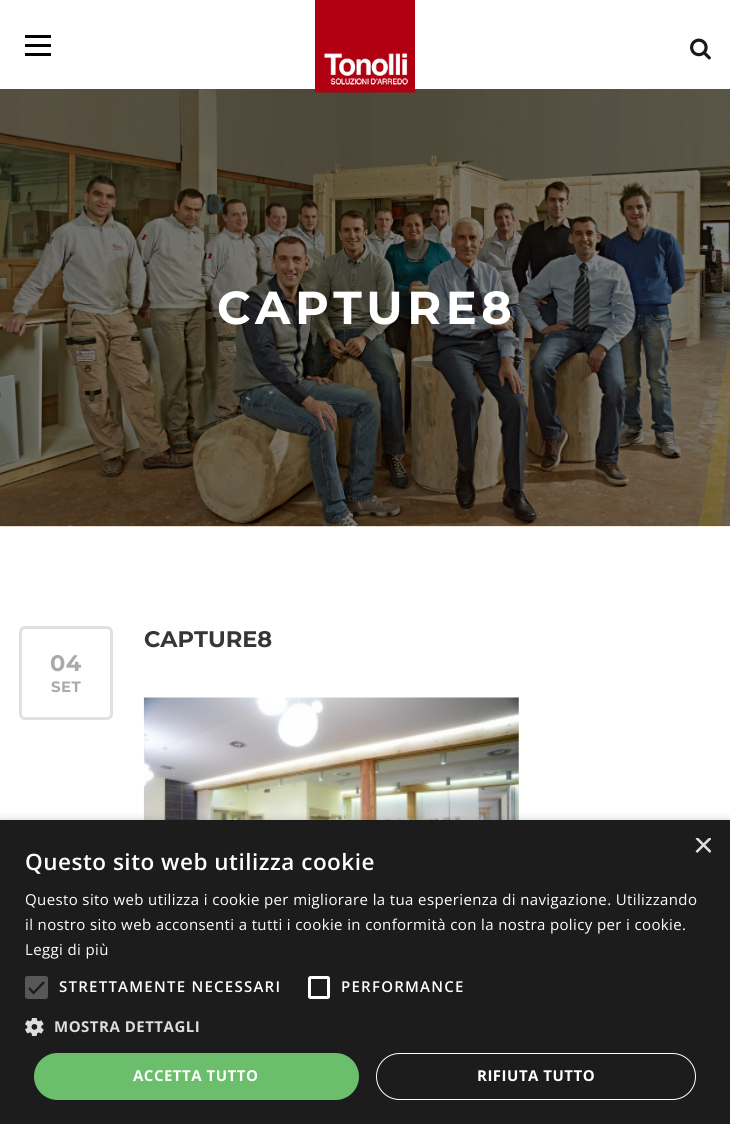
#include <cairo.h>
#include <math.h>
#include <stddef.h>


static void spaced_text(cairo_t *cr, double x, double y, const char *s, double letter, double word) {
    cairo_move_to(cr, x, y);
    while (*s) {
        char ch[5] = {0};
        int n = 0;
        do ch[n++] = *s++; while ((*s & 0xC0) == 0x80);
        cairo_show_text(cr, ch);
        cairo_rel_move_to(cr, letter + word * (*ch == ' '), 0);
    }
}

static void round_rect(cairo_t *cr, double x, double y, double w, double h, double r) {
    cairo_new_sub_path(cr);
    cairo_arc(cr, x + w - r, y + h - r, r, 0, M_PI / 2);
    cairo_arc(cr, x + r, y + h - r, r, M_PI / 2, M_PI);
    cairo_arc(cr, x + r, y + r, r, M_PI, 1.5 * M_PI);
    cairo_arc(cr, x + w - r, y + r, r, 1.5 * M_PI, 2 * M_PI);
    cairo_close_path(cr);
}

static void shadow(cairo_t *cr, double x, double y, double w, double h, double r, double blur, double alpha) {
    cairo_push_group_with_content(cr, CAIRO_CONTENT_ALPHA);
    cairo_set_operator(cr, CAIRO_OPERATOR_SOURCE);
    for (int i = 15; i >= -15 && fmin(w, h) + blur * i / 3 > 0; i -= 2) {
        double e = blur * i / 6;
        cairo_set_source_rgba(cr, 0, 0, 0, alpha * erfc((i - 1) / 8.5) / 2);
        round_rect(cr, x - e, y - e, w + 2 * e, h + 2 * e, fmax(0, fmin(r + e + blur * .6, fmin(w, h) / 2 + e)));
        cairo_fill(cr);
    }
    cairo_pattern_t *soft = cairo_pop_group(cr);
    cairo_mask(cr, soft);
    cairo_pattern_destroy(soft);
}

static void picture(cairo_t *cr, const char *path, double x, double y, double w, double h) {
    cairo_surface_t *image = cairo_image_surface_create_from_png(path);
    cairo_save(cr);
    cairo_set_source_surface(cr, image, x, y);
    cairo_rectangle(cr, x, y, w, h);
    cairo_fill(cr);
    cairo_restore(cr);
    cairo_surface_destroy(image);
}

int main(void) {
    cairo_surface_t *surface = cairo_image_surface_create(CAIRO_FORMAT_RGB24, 730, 1124);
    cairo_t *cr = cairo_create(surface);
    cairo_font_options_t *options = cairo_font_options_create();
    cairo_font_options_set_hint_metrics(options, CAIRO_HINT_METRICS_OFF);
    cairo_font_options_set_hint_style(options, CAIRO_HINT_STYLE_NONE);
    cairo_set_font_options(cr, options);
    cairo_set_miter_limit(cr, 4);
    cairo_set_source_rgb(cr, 1, 1, 1);
    cairo_paint(cr);
    picture(cr, "img3.png", 0, 89, 730, 438);
    picture(cr, "img1.png", 315, 0, 100, 93);
    cairo_set_source_rgb(cr, 0, 0, 0);
    cairo_rectangle(cr, 25, 44, 26, 3);
    cairo_fill(cr);
    cairo_rectangle(cr, 25, 35, 26, 3);
    cairo_fill(cr);
    cairo_rectangle(cr, 25, 53, 26, 3);
    cairo_fill(cr);
    picture(cr, "img2.png", 690, 38, 21, 22);
    cairo_select_font_face(cr, "Montserrat", CAIRO_FONT_SLANT_NORMAL, CAIRO_FONT_WEIGHT_BOLD);
    cairo_set_font_size(cr, 46.25);
    cairo_set_source_rgb(cr, 1, 1, 1);
    spaced_text(cr, 217, 324, "CAPTURE8", 4.5, 0);
    cairo_set_font_size(cr, 22.5);
    cairo_set_source_rgb(cr, 0.216, 0.212, 0.212);
    cairo_move_to(cr, 144, 647);
    cairo_show_text(cr, "CAPTURE8");
    picture(cr, "img4.png", 143, 697, 376, 123);
    round_rect(cr, 20.5, 627.5, 91, 91, 4.5);
    cairo_set_source_rgb(cr, 0.882, 0.882, 0.882);
    cairo_set_line_width(cr, 3);
    cairo_stroke(cr);
    cairo_set_source_rgb(cr, 0.667, 0.667, 0.667);
    spaced_text(cr, 50, 671, "04", 0.38, 0);
    cairo_set_font_size(cr, 15);
    spaced_text(cr, 51, 692, "SET", 0.38, 0);
    cairo_set_source_rgb(cr, 0, 0, 0);
    shadow(cr, 1, 823, 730, 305, 0, 5, 0.35);
    cairo_set_source_rgb(cr, 0.11, 0.11, 0.11);
    cairo_rectangle(cr, 0, 820, 730, 304);
    cairo_fill(cr);
    cairo_save(cr);
    cairo_rectangle(cr, 693, 838, 18, 18);
    cairo_clip(cr);
    cairo_select_font_face(cr, "Liberation Sans", CAIRO_FONT_SLANT_NORMAL, CAIRO_FONT_WEIGHT_NORMAL);
    cairo_set_font_size(cr, 36);
    cairo_set_source_rgb(cr, 0.867, 0.867, 0.867);
    cairo_move_to(cr, 693, 857);
    cairo_show_text(cr, "×");
    cairo_restore(cr);
    cairo_select_font_face(cr, "Open Sans SemiBold", CAIRO_FONT_SLANT_NORMAL, CAIRO_FONT_WEIGHT_NORMAL);
    cairo_set_font_size(cr, 22.5);
    cairo_set_source_rgb(cr, 1, 1, 1);
    spaced_text(cr, 25, 870, "Questo sito web utilizza cookie", 0.5, 0);
    cairo_select_font_face(cr, "Open Sans", CAIRO_FONT_SLANT_NORMAL, CAIRO_FONT_WEIGHT_NORMAL);
    cairo_set_font_size(cr, 15);
    spaced_text(cr, 25, 905, "Questo sito web utilizza i cookie per migliorare la tua esperienza di navigazione. Utilizzando", 0.38, 0);
    spaced_text(cr, 25, 930, "il nostro sito web acconsenti a tutti i cookie in conformità con la nostra policy per i cookie.", 0.38, 0);
    spaced_text(cr, 25, 955, "Leggi di più", 0.38, 0);
    cairo_set_source_rgb(cr, 0.341, 0.341, 0.341);
    round_rect(cr, 25, 976, 23, 23, 2.5);
    cairo_fill(cr);
    cairo_new_path(cr);
    cairo_move_to(cr, 29, 988);
    cairo_line_to(cr, 33.5, 993);
    cairo_line_to(cr, 44, 982);
    cairo_set_source_rgb(cr, 0.11, 0.11, 0.11);
    cairo_set_line_width(cr, 2.3);
    cairo_stroke(cr);
    cairo_select_font_face(cr, "Open Sans SemiBold", CAIRO_FONT_SLANT_NORMAL, CAIRO_FONT_WEIGHT_NORMAL);
    cairo_set_source_rgb(cr, 1, 1, 1);
    spaced_text(cr, 59, 992, "STRETTAMENTE NECESSARI", 1.25, 0);
    round_rect(cr, 309.5, 977.5, 19, 20, 1);
    cairo_set_line_width(cr, 3);
    cairo_stroke(cr);
    spaced_text(cr, 341, 992, "PERFORMANCE", 1.25, 0);
    picture(cr, "img5.png", 25, 1018, 19, 18);
    cairo_select_font_face(cr, "Open Sans", CAIRO_FONT_SLANT_NORMAL, CAIRO_FONT_WEIGHT_BOLD);
    cairo_set_source_rgb(cr, 0.867, 0.867, 0.867);
    spaced_text(cr, 54, 1032, "MOSTRA DETTAGLI", 0.5, 0);
    cairo_set_source_rgb(cr, 0.42, 0.745, 0.42);
    round_rect(cr, 34, 1053, 325, 47, 23.5);
    cairo_fill(cr);
    cairo_set_source_rgb(cr, 1, 1, 1);
    spaced_text(cr, 133, 1081, "ACCETTA TUTTO", 0.5, 0);
    round_rect(cr, 376.5, 1053.5, 319, 46, 23);
    cairo_set_line_width(cr, 1);
    cairo_stroke(cr);
    spaced_text(cr, 477, 1081, "RIFIUTA TUTTO", 0.5, 0);
    cairo_surface_write_to_png(surface, "page.png");
    cairo_font_options_destroy(options);
    cairo_destroy(cr);
    cairo_surface_destroy(surface);
    return 0;
}
